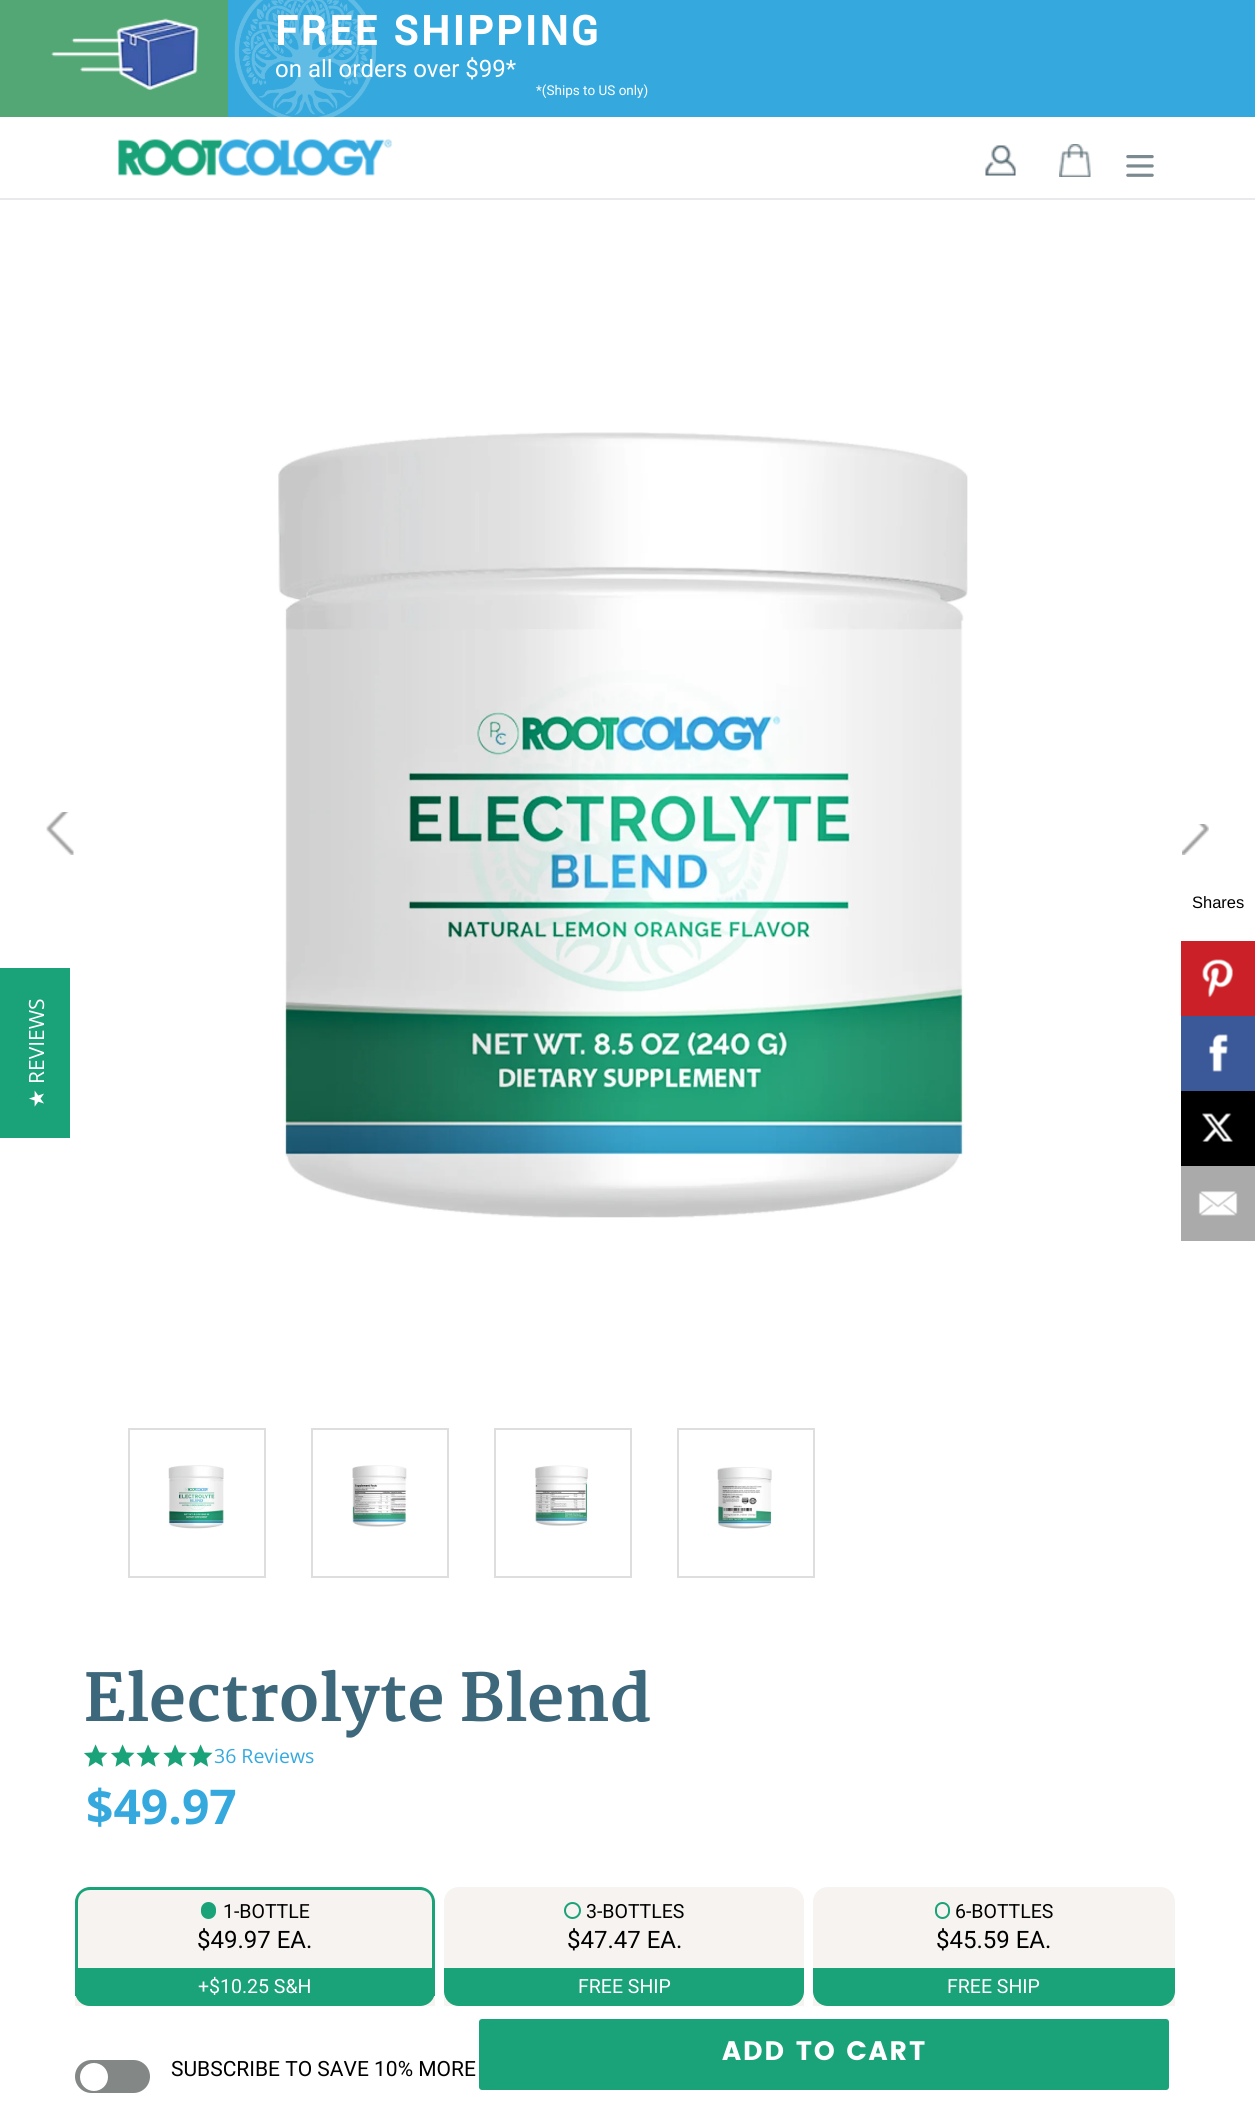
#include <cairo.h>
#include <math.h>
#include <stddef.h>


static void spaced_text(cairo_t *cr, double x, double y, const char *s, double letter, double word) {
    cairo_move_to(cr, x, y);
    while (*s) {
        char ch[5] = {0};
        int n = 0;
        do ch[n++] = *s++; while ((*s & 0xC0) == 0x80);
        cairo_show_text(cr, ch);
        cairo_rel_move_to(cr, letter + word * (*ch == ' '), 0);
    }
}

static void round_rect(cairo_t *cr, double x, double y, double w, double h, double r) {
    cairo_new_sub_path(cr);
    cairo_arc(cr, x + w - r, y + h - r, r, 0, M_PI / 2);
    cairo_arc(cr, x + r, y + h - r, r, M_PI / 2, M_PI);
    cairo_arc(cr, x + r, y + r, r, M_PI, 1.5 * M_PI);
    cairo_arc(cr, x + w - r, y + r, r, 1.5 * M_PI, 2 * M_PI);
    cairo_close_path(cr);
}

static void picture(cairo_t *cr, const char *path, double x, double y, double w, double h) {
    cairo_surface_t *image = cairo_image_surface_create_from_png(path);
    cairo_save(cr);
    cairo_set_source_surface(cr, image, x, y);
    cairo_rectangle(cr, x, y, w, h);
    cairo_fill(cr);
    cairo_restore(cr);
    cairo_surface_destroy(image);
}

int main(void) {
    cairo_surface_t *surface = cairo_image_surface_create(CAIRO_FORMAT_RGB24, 1255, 2106);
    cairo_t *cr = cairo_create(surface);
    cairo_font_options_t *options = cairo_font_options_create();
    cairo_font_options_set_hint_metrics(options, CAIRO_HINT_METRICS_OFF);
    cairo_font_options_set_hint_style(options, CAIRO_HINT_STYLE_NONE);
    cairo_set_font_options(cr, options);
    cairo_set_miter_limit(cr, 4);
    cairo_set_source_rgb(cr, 1, 1, 1);
    cairo_paint(cr);
    cairo_set_source_rgb(cr, 0.325, 0.655, 0.459);
    cairo_rectangle(cr, 0, 0, 228, 117);
    cairo_fill(cr);
    picture(cr, "img1.png", 51, 18, 148, 72);
    cairo_set_source_rgb(cr, 0.208, 0.663, 0.871);
    cairo_rectangle(cr, 228, 0, 1027, 117);
    cairo_fill(cr);
    picture(cr, "img2.png", 234, 0, 142, 117);
    cairo_select_font_face(cr, "Roboto", CAIRO_FONT_SLANT_NORMAL, CAIRO_FONT_WEIGHT_BOLD);
    cairo_set_font_size(cr, 40.5);
    cairo_set_source_rgb(cr, 1, 1, 1);
    spaced_text(cr, 275, 45, "FREE SHIPPING", 3, 0);
    cairo_select_font_face(cr, "Roboto", CAIRO_FONT_SLANT_NORMAL, CAIRO_FONT_WEIGHT_NORMAL);
    cairo_set_font_size(cr, 24);
    cairo_move_to(cr, 275, 77);
    cairo_show_text(cr, "on all orders over $99*");
    cairo_set_font_size(cr, 13.5);
    cairo_move_to(cr, 536, 95);
    cairo_show_text(cr, "*(Ships to US only)");
    cairo_set_source_rgb(cr, 0.91, 0.914, 0.922);
    cairo_rectangle(cr, 0, 198, 1255, 2);
    cairo_fill(cr);
    picture(cr, "img3.png", 118, 139, 274, 37);
    picture(cr, "img4.png", 985, 145, 31, 31);
    picture(cr, "img5.png", 1059, 144, 32, 33);
    picture(cr, "img6.png", 1126, 155, 28, 22);
    cairo_select_font_face(cr, "Liberation Sans", CAIRO_FONT_SLANT_NORMAL, CAIRO_FONT_WEIGHT_NORMAL);
    cairo_set_font_size(cr, 16.5);
    cairo_set_source_rgb(cr, 0, 0, 0);
    cairo_move_to(cr, 1192, 908);
    cairo_show_text(cr, "Shares");
    cairo_set_source_rgb(cr, 0.796, 0.125, 0.153);
    cairo_rectangle(cr, 1181, 941, 74, 75);
    cairo_fill(cr);
    picture(cr, "img7.png", 1202, 959, 31, 39);
    cairo_set_source_rgb(cr, 0.231, 0.349, 0.596);
    cairo_rectangle(cr, 1181, 1016, 74, 75);
    cairo_fill(cr);
    picture(cr, "img8.png", 1209, 1034, 19, 38);
    cairo_set_source_rgb(cr, 0, 0, 0);
    cairo_rectangle(cr, 1181, 1091, 74, 75);
    cairo_fill(cr);
    picture(cr, "img9.png", 1202, 1113, 31, 29);
    cairo_set_source_rgb(cr, 0.667, 0.667, 0.667);
    cairo_rectangle(cr, 1181, 1166, 74, 75);
    cairo_fill(cr);
    picture(cr, "img10.png", 1198, 1191, 40, 25);
    cairo_set_source_rgb(cr, 0.102, 0.635, 0.475);
    cairo_rectangle(cr, 0, 968, 70, 170);
    cairo_fill(cr);
    cairo_select_font_face(cr, "Open Sans", CAIRO_FONT_SLANT_NORMAL, CAIRO_FONT_WEIGHT_NORMAL);
    cairo_set_font_size(cr, 21);
    cairo_set_source_rgb(cr, 1, 1, 1);
    cairo_save(cr);
    cairo_translate(cr, 44, 1084);
    cairo_rotate(cr, -90 * M_PI / 180);
    cairo_move_to(cr, 0, 0);
    cairo_show_text(cr, "REVIEWS");
    cairo_restore(cr);
    cairo_select_font_face(cr, "DejaVu Sans", CAIRO_FONT_SLANT_NORMAL, CAIRO_FONT_WEIGHT_NORMAL);
    cairo_save(cr);
    cairo_translate(cr, 44, 1108);
    cairo_rotate(cr, -90 * M_PI / 180);
    cairo_move_to(cr, 0, 0);
    cairo_show_text(cr, "★");
    cairo_restore(cr);
    picture(cr, "img11.png", 46, 812, 28, 43);
    picture(cr, "img12.png", 278, 432, 690, 786);
    picture(cr, "img13.png", 1182, 824, 27, 31);
    cairo_rectangle(cr, 129, 1429, 136, 148);
    cairo_set_source_rgb(cr, 0.871, 0.871, 0.871);
    cairo_stroke(cr);
    picture(cr, "img14.png", 168, 1465, 56, 64);
    cairo_rectangle(cr, 312, 1429, 136, 148);
    cairo_stroke(cr);
    picture(cr, "img15.png", 352, 1465, 55, 62);
    cairo_rectangle(cr, 495, 1429, 136, 148);
    cairo_stroke(cr);
    picture(cr, "img16.png", 535, 1465, 53, 61);
    cairo_rectangle(cr, 678, 1429, 136, 148);
    cairo_stroke(cr);
    picture(cr, "img17.png", 717, 1467, 55, 62);
    cairo_select_font_face(cr, "Martel ExtraBold", CAIRO_FONT_SLANT_NORMAL, CAIRO_FONT_WEIGHT_NORMAL);
    cairo_set_font_size(cr, 64.5);
    cairo_set_source_rgb(cr, 0.239, 0.404, 0.478);
    cairo_move_to(cr, 83, 1721);
    cairo_show_text(cr, "Electrolyte Blend");
    picture(cr, "img18.png", 84, 1744, 24, 23);
    picture(cr, "img18.png", 111, 1744, 24, 23);
    picture(cr, "img19.png", 136, 1744, 24, 23);
    picture(cr, "img19.png", 163, 1744, 24, 23);
    picture(cr, "img18.png", 189, 1744, 24, 23);
    cairo_select_font_face(cr, "Open Sans", CAIRO_FONT_SLANT_NORMAL, CAIRO_FONT_WEIGHT_NORMAL);
    cairo_set_font_size(cr, 19.5);
    cairo_set_source_rgb(cr, 0.208, 0.663, 0.871);
    cairo_move_to(cr, 214, 1763);
    cairo_show_text(cr, "36 Reviews");
    cairo_select_font_face(cr, "Open Sans", CAIRO_FONT_SLANT_NORMAL, CAIRO_FONT_WEIGHT_BOLD);
    cairo_set_font_size(cr, 48);
    cairo_move_to(cr, 86, 1824);
    cairo_show_text(cr, "$49.97");
    cairo_set_source_rgb(cr, 0.961, 0.953, 0.941);
    cairo_new_path(cr);
    cairo_move_to(cr, 90, 1887);
    cairo_line_to(cr, 420, 1887);
    cairo_curve_to(cr, 428.5, 1887, 435, 1893.5, 435, 1902);
    cairo_line_to(cr, 435, 2006);
    cairo_line_to(cr, 75, 2006);
    cairo_line_to(cr, 75, 1902);
    cairo_curve_to(cr, 75, 1893.5, 81.5, 1887, 90, 1887);
    cairo_close_path(cr);
    cairo_fill(cr);
    cairo_set_source_rgb(cr, 0.102, 0.635, 0.475);
    round_rect(cr, 202, 1903, 13, 15, 6.5);
    cairo_fill_preserve(cr);
    cairo_stroke(cr);
    cairo_select_font_face(cr, "Roboto", CAIRO_FONT_SLANT_NORMAL, CAIRO_FONT_WEIGHT_NORMAL);
    cairo_set_font_size(cr, 19.5);
    cairo_set_source_rgb(cr, 0, 0, 0);
    cairo_move_to(cr, 223, 1918);
    cairo_show_text(cr, "1-BOTTLE");
    cairo_set_font_size(cr, 24);
    cairo_move_to(cr, 197, 1948);
    cairo_show_text(cr, "$49.97 EA.");
    cairo_set_source_rgb(cr, 0.102, 0.635, 0.475);
    cairo_new_path(cr);
    cairo_move_to(cr, 75, 1968);
    cairo_line_to(cr, 435, 1968);
    cairo_line_to(cr, 435, 1991);
    cairo_curve_to(cr, 435, 1999.5, 428.5, 2006, 420, 2006);
    cairo_line_to(cr, 90, 2006);
    cairo_curve_to(cr, 81.5, 2006, 75, 1999.5, 75, 1991);
    cairo_close_path(cr);
    cairo_fill(cr);
    cairo_set_font_size(cr, 19.5);
    cairo_set_source_rgb(cr, 1, 1, 1);
    cairo_move_to(cr, 198, 1993);
    cairo_show_text(cr, "+$10.25 S&H");
    cairo_set_source_rgb(cr, 0.102, 0.635, 0.475);
    cairo_set_fill_rule(cr, CAIRO_FILL_RULE_EVEN_ODD);
    cairo_new_path(cr);
    cairo_move_to(cr, 90, 1887);
    cairo_line_to(cr, 420, 1887);
    cairo_curve_to(cr, 428, 1887, 435, 1894, 435, 1902);
    cairo_line_to(cr, 435, 1996);
    cairo_line_to(cr, 75, 1996);
    cairo_line_to(cr, 75, 1902);
    cairo_curve_to(cr, 75, 1894, 82, 1887, 90, 1887);
    cairo_close_path(cr);
    cairo_move_to(cr, 90, 1890);
    cairo_line_to(cr, 420, 1890);
    cairo_curve_to(cr, 427, 1890, 432, 1895, 432, 1902);
    cairo_line_to(cr, 432, 1996);
    cairo_line_to(cr, 78, 1996);
    cairo_line_to(cr, 78, 1902);
    cairo_curve_to(cr, 78, 1895, 83, 1890, 90, 1890);
    cairo_close_path(cr);
    cairo_fill(cr);
    cairo_set_source_rgb(cr, 0.961, 0.953, 0.941);
    cairo_new_path(cr);
    cairo_move_to(cr, 459, 1887);
    cairo_line_to(cr, 789, 1887);
    cairo_curve_to(cr, 797.5, 1887, 804, 1893.5, 804, 1902);
    cairo_line_to(cr, 804, 2006);
    cairo_line_to(cr, 444, 2006);
    cairo_line_to(cr, 444, 1902);
    cairo_curve_to(cr, 444, 1893.5, 450.5, 1887, 459, 1887);
    cairo_close_path(cr);
    cairo_fill(cr);
    cairo_arc(cr, 572.5, 1910.5, 7.5, 0, 2 * M_PI);
    cairo_set_source_rgb(cr, 0.102, 0.635, 0.475);
    cairo_stroke(cr);
    cairo_set_source_rgb(cr, 0, 0, 0);
    cairo_move_to(cr, 586, 1918);
    cairo_show_text(cr, "3-BOTTLES");
    cairo_set_font_size(cr, 24);
    cairo_move_to(cr, 567, 1948);
    cairo_show_text(cr, "$47.47 EA.");
    cairo_set_source_rgb(cr, 0.102, 0.635, 0.475);
    cairo_new_path(cr);
    cairo_move_to(cr, 444, 1968);
    cairo_line_to(cr, 804, 1968);
    cairo_line_to(cr, 804, 1991);
    cairo_curve_to(cr, 804, 1999.5, 797.5, 2006, 789, 2006);
    cairo_line_to(cr, 459, 2006);
    cairo_curve_to(cr, 450.5, 2006, 444, 1999.5, 444, 1991);
    cairo_close_path(cr);
    cairo_fill(cr);
    cairo_set_font_size(cr, 19.5);
    cairo_set_source_rgb(cr, 1, 1, 1);
    cairo_move_to(cr, 578, 1993);
    cairo_show_text(cr, "FREE SHIP");
    cairo_set_source_rgb(cr, 0.961, 0.953, 0.941);
    cairo_new_path(cr);
    cairo_move_to(cr, 828, 1887);
    cairo_line_to(cr, 1160, 1887);
    cairo_curve_to(cr, 1168.5, 1887, 1175, 1893.5, 1175, 1902);
    cairo_line_to(cr, 1175, 2006);
    cairo_line_to(cr, 813, 2006);
    cairo_line_to(cr, 813, 1902);
    cairo_curve_to(cr, 813, 1893.5, 819.5, 1887, 828, 1887);
    cairo_close_path(cr);
    cairo_fill(cr);
    round_rect(cr, 936, 1903, 13, 15, 6.5);
    cairo_set_source_rgb(cr, 0.102, 0.635, 0.475);
    cairo_stroke(cr);
    cairo_set_source_rgb(cr, 0, 0, 0);
    cairo_move_to(cr, 955, 1918);
    cairo_show_text(cr, "6-BOTTLES");
    cairo_set_font_size(cr, 24);
    cairo_move_to(cr, 936, 1948);
    cairo_show_text(cr, "$45.59 EA.");
    cairo_set_source_rgb(cr, 0.102, 0.635, 0.475);
    cairo_new_path(cr);
    cairo_move_to(cr, 813, 1968);
    cairo_line_to(cr, 1175, 1968);
    cairo_line_to(cr, 1175, 1991);
    cairo_curve_to(cr, 1175, 1999.5, 1168.5, 2006, 1160, 2006);
    cairo_line_to(cr, 828, 2006);
    cairo_curve_to(cr, 819.5, 2006, 813, 1999.5, 813, 1991);
    cairo_close_path(cr);
    cairo_fill(cr);
    cairo_set_font_size(cr, 19.5);
    cairo_set_source_rgb(cr, 1, 1, 1);
    cairo_move_to(cr, 947, 1993);
    cairo_show_text(cr, "FREE SHIP");
    cairo_set_source_rgb(cr, 0.102, 0.635, 0.475);
    round_rect(cr, 479, 2019, 690, 71, 3);
    cairo_fill(cr);
    cairo_select_font_face(cr, "Poppins", CAIRO_FONT_SLANT_NORMAL, CAIRO_FONT_WEIGHT_BOLD);
    cairo_set_font_size(cr, 26.75);
    cairo_set_source_rgb(cr, 1, 1, 1);
    spaced_text(cr, 722, 2060, "ADD TO CART", 1.75, 0);
    cairo_set_source_rgb(cr, 0.514, 0.529, 0.522);
    round_rect(cr, 75, 2060, 75, 33, 16.5);
    cairo_fill(cr);
    cairo_select_font_face(cr, "Roboto", CAIRO_FONT_SLANT_NORMAL, CAIRO_FONT_WEIGHT_NORMAL);
    cairo_set_font_size(cr, 21);
    cairo_set_source_rgb(cr, 0, 0, 0);
    cairo_move_to(cr, 171, 2076);
    cairo_show_text(cr, "SUBSCRIBE TO SAVE 10% MORE");
    cairo_set_source_rgb(cr, 1, 1, 1);
    cairo_new_path(cr);
    cairo_arc(cr, 94, 2077, 14, 0, 2 * M_PI);
    cairo_fill(cr);
    cairo_surface_write_to_png(surface, "page.png");
    cairo_font_options_destroy(options);
    cairo_destroy(cr);
    cairo_surface_destroy(surface);
    return 0;
}
